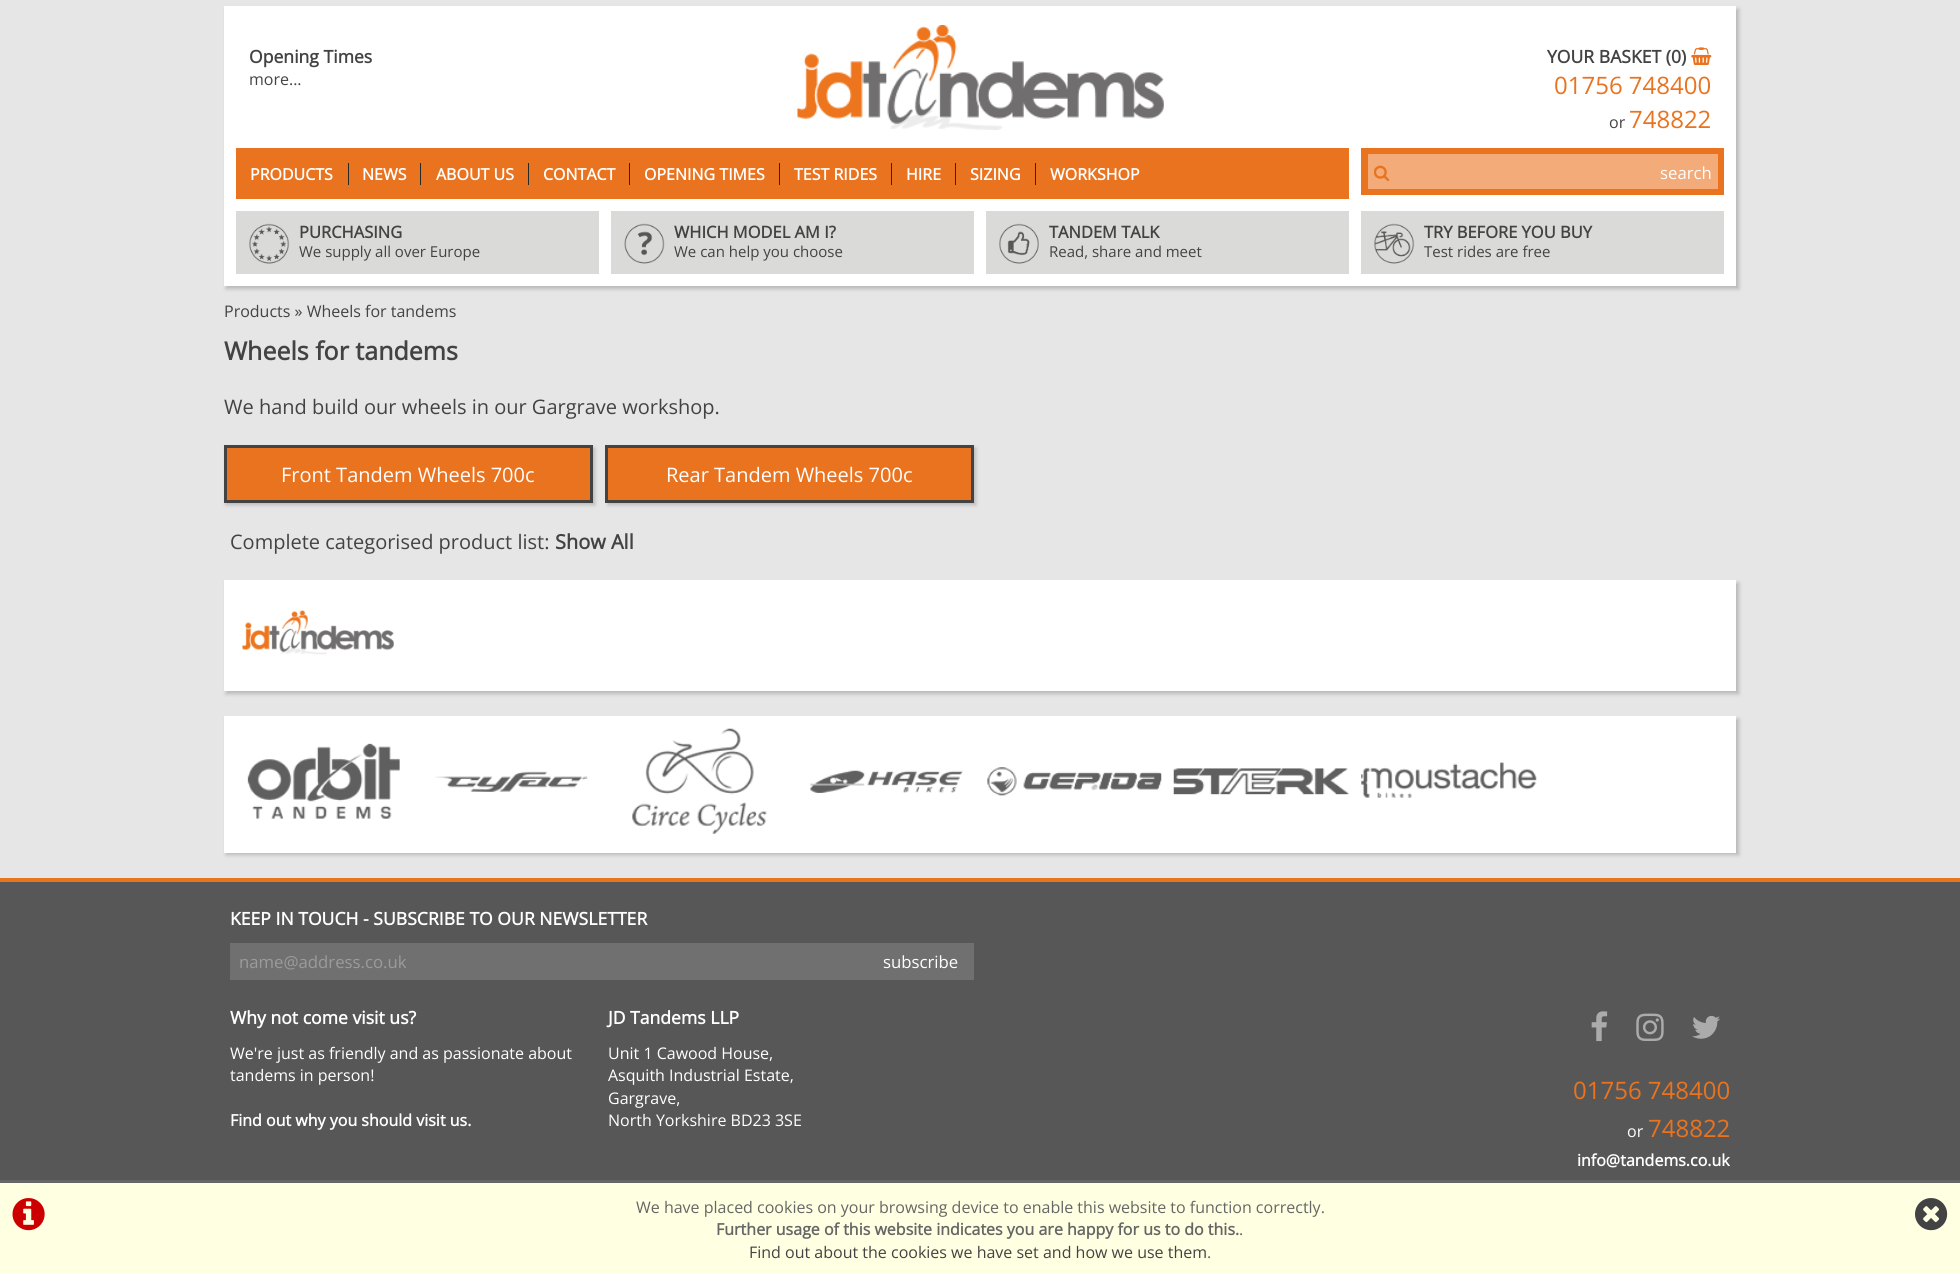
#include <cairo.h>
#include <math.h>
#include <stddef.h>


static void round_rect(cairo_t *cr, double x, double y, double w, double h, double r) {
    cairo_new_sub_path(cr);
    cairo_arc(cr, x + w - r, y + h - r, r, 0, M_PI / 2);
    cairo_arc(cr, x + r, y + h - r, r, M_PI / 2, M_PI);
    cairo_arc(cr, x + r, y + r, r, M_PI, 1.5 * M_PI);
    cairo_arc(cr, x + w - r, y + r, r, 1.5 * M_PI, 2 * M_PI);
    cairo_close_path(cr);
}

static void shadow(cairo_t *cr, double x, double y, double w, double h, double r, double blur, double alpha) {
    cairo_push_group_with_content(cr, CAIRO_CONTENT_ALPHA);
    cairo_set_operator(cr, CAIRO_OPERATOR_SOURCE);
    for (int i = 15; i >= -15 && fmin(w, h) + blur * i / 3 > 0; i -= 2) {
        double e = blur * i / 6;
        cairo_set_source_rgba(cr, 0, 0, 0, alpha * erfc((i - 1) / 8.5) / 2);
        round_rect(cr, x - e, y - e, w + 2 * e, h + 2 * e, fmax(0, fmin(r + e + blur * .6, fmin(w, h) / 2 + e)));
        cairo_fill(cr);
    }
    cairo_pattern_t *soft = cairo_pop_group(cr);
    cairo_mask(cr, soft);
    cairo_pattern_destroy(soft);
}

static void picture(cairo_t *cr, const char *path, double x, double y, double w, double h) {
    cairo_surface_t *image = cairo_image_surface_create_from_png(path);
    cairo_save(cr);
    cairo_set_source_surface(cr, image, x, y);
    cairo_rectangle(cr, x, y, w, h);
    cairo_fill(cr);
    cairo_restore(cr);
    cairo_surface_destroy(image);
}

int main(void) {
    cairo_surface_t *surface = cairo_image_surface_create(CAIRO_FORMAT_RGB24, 1960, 1274);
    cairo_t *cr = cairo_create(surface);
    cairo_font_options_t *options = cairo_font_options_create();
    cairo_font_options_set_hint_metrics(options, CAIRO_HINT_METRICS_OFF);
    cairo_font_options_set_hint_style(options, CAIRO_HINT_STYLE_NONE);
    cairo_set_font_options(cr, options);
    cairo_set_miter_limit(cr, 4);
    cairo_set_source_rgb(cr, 0.902, 0.902, 0.902);
    cairo_paint(cr);
    cairo_set_source_rgb(cr, 0, 0, 0);
    shadow(cr, 226, 9, 1513, 280, 0, 2, 0.2);
    cairo_set_source_rgb(cr, 1, 1, 1);
    cairo_rectangle(cr, 224, 6, 1512, 280);
    cairo_fill(cr);
    cairo_select_font_face(cr, "Open Sans", CAIRO_FONT_SLANT_NORMAL, CAIRO_FONT_WEIGHT_BOLD);
    cairo_set_font_size(cr, 17.6);
    cairo_set_source_rgb(cr, 0.263, 0.263, 0.263);
    cairo_move_to(cr, 249, 63);
    cairo_show_text(cr, "Opening Times");
    cairo_select_font_face(cr, "Open Sans", CAIRO_FONT_SLANT_NORMAL, CAIRO_FONT_WEIGHT_NORMAL);
    cairo_set_font_size(cr, 16);
    cairo_move_to(cr, 249, 85);
    cairo_show_text(cr, "more...");
    picture(cr, "img1.png", 797, 25, 367, 105);
    cairo_select_font_face(cr, "Open Sans", CAIRO_FONT_SLANT_NORMAL, CAIRO_FONT_WEIGHT_BOLD);
    cairo_set_font_size(cr, 17.6);
    cairo_move_to(cr, 1547, 63);
    cairo_show_text(cr, "YOUR BASKET (0)");
    picture(cr, "img2.png", 1691, 47, 21, 18);
    cairo_select_font_face(cr, "Open Sans", CAIRO_FONT_SLANT_NORMAL, CAIRO_FONT_WEIGHT_NORMAL);
    cairo_set_font_size(cr, 24);
    cairo_set_source_rgb(cr, 0.914, 0.451, 0.122);
    cairo_move_to(cr, 1554, 94);
    cairo_show_text(cr, "01756 748400");
    cairo_set_font_size(cr, 16);
    cairo_set_source_rgb(cr, 0.263, 0.263, 0.263);
    cairo_move_to(cr, 1609, 128);
    cairo_show_text(cr, "or");
    cairo_set_font_size(cr, 24);
    cairo_set_source_rgb(cr, 0.914, 0.451, 0.122);
    cairo_move_to(cr, 1629, 128);
    cairo_show_text(cr, "748822");
    cairo_rectangle(cr, 236, 148, 1113, 51);
    cairo_fill(cr);
    cairo_select_font_face(cr, "Open Sans", CAIRO_FONT_SLANT_NORMAL, CAIRO_FONT_WEIGHT_BOLD);
    cairo_set_font_size(cr, 16);
    cairo_set_source_rgb(cr, 1, 1, 1);
    cairo_move_to(cr, 250, 180);
    cairo_show_text(cr, "PRODUCTS");
    cairo_set_source_rgb(cr, 0.149, 0.161, 0.165);
    cairo_rectangle(cr, 348, 163, 1, 22);
    cairo_fill(cr);
    cairo_set_source_rgb(cr, 1, 1, 1);
    cairo_move_to(cr, 362, 180);
    cairo_show_text(cr, "NEWS");
    cairo_set_source_rgb(cr, 0.149, 0.161, 0.165);
    cairo_rectangle(cr, 420, 163, 1, 22);
    cairo_fill(cr);
    cairo_set_source_rgb(cr, 1, 1, 1);
    cairo_move_to(cr, 436, 180);
    cairo_show_text(cr, "ABOUT US");
    cairo_set_source_rgb(cr, 0.149, 0.161, 0.165);
    cairo_rectangle(cr, 528, 163, 1, 22);
    cairo_fill(cr);
    cairo_set_source_rgb(cr, 1, 1, 1);
    cairo_move_to(cr, 543, 180);
    cairo_show_text(cr, "CONTACT");
    cairo_set_source_rgb(cr, 0.149, 0.161, 0.165);
    cairo_rectangle(cr, 629, 163, 1, 22);
    cairo_fill(cr);
    cairo_set_source_rgb(cr, 1, 1, 1);
    cairo_move_to(cr, 644, 180);
    cairo_show_text(cr, "OPENING TIMES");
    cairo_set_source_rgb(cr, 0.149, 0.161, 0.165);
    cairo_rectangle(cr, 779, 163, 1, 22);
    cairo_fill(cr);
    cairo_set_source_rgb(cr, 1, 1, 1);
    cairo_move_to(cr, 794, 180);
    cairo_show_text(cr, "TEST RIDES");
    cairo_set_source_rgb(cr, 0.149, 0.161, 0.165);
    cairo_rectangle(cr, 891, 163, 1, 22);
    cairo_fill(cr);
    cairo_set_source_rgb(cr, 1, 1, 1);
    cairo_move_to(cr, 906, 180);
    cairo_show_text(cr, "HIRE");
    cairo_set_source_rgb(cr, 0.149, 0.161, 0.165);
    cairo_rectangle(cr, 955, 163, 1, 22);
    cairo_fill(cr);
    cairo_set_source_rgb(cr, 1, 1, 1);
    cairo_move_to(cr, 970, 180);
    cairo_show_text(cr, "SIZING");
    cairo_set_source_rgb(cr, 0.149, 0.161, 0.165);
    cairo_rectangle(cr, 1035, 163, 1, 22);
    cairo_fill(cr);
    cairo_set_source_rgb(cr, 1, 1, 1);
    cairo_move_to(cr, 1050, 180);
    cairo_show_text(cr, "WORKSHOP");
    cairo_set_source_rgb(cr, 0.914, 0.451, 0.122);
    cairo_rectangle(cr, 1361, 148, 363, 47);
    cairo_fill(cr);
    cairo_set_source_rgb(cr, 0.949, 0.671, 0.475);
    cairo_rectangle(cr, 1368, 154, 350, 35);
    cairo_fill(cr);
    picture(cr, "img3.png", 1374, 165, 16, 17);
    cairo_select_font_face(cr, "Open Sans", CAIRO_FONT_SLANT_NORMAL, CAIRO_FONT_WEIGHT_NORMAL);
    cairo_set_font_size(cr, 16.75);
    cairo_set_source_rgb(cr, 1, 1, 1);
    cairo_move_to(cr, 1660, 179);
    cairo_show_text(cr, "search");
    cairo_set_source_rgb(cr, 0.855, 0.855, 0.851);
    cairo_rectangle(cr, 236, 211, 363, 63);
    cairo_fill(cr);
    picture(cr, "img4.png", 249, 223, 41, 41);
    cairo_select_font_face(cr, "Open Sans", CAIRO_FONT_SLANT_NORMAL, CAIRO_FONT_WEIGHT_BOLD);
    cairo_set_font_size(cr, 16.5);
    cairo_set_source_rgb(cr, 0.263, 0.263, 0.263);
    cairo_move_to(cr, 299, 238);
    cairo_show_text(cr, "PURCHASING");
    cairo_select_font_face(cr, "Open Sans", CAIRO_FONT_SLANT_NORMAL, CAIRO_FONT_WEIGHT_NORMAL);
    cairo_set_font_size(cr, 15);
    cairo_move_to(cr, 299, 257);
    cairo_show_text(cr, "We supply all over Europe");
    cairo_set_source_rgb(cr, 0.855, 0.855, 0.851);
    cairo_rectangle(cr, 611, 211, 363, 63);
    cairo_fill(cr);
    picture(cr, "img5.png", 624, 223, 41, 41);
    cairo_select_font_face(cr, "Open Sans", CAIRO_FONT_SLANT_NORMAL, CAIRO_FONT_WEIGHT_BOLD);
    cairo_set_font_size(cr, 16.5);
    cairo_set_source_rgb(cr, 0.263, 0.263, 0.263);
    cairo_move_to(cr, 674, 238);
    cairo_show_text(cr, "WHICH MODEL AM I?");
    cairo_select_font_face(cr, "Open Sans", CAIRO_FONT_SLANT_NORMAL, CAIRO_FONT_WEIGHT_NORMAL);
    cairo_set_font_size(cr, 15);
    cairo_move_to(cr, 674, 257);
    cairo_show_text(cr, "We can help you choose");
    cairo_set_source_rgb(cr, 0.855, 0.855, 0.851);
    cairo_rectangle(cr, 986, 211, 363, 63);
    cairo_fill(cr);
    picture(cr, "img6.png", 999, 223, 40, 41);
    cairo_select_font_face(cr, "Open Sans", CAIRO_FONT_SLANT_NORMAL, CAIRO_FONT_WEIGHT_BOLD);
    cairo_set_font_size(cr, 16.5);
    cairo_set_source_rgb(cr, 0.263, 0.263, 0.263);
    cairo_move_to(cr, 1049, 238);
    cairo_show_text(cr, "TANDEM TALK");
    cairo_select_font_face(cr, "Open Sans", CAIRO_FONT_SLANT_NORMAL, CAIRO_FONT_WEIGHT_NORMAL);
    cairo_set_font_size(cr, 15);
    cairo_move_to(cr, 1049, 257);
    cairo_show_text(cr, "Read, share and meet");
    cairo_set_source_rgb(cr, 0.855, 0.855, 0.851);
    cairo_rectangle(cr, 1361, 211, 363, 63);
    cairo_fill(cr);
    picture(cr, "img7.png", 1374, 223, 41, 41);
    cairo_select_font_face(cr, "Open Sans", CAIRO_FONT_SLANT_NORMAL, CAIRO_FONT_WEIGHT_BOLD);
    cairo_set_font_size(cr, 16.5);
    cairo_set_source_rgb(cr, 0.263, 0.263, 0.263);
    cairo_move_to(cr, 1424, 238);
    cairo_show_text(cr, "TRY BEFORE YOU BUY");
    cairo_select_font_face(cr, "Open Sans", CAIRO_FONT_SLANT_NORMAL, CAIRO_FONT_WEIGHT_NORMAL);
    cairo_set_font_size(cr, 15);
    cairo_move_to(cr, 1424, 257);
    cairo_show_text(cr, "Test rides are free");
    cairo_set_font_size(cr, 16);
    cairo_move_to(cr, 224, 317);
    cairo_show_text(cr, "Products » Wheels for tandems");
    cairo_select_font_face(cr, "Open Sans", CAIRO_FONT_SLANT_NORMAL, CAIRO_FONT_WEIGHT_BOLD);
    cairo_set_font_size(cr, 25);
    cairo_move_to(cr, 224, 360);
    cairo_show_text(cr, "Wheels for tandems");
    cairo_select_font_face(cr, "Open Sans", CAIRO_FONT_SLANT_NORMAL, CAIRO_FONT_WEIGHT_NORMAL);
    cairo_set_font_size(cr, 20);
    cairo_move_to(cr, 224, 414);
    cairo_show_text(cr, "We hand build our wheels in our Gargrave workshop.");
    cairo_set_source_rgb(cr, 0, 0, 0);
    shadow(cr, 226, 448, 369, 57, 0, 2, 0.2);
    cairo_set_source_rgb(cr, 0.914, 0.451, 0.122);
    cairo_rectangle(cr, 225.5, 446.5, 366, 55);
    cairo_fill_preserve(cr);
    cairo_set_source_rgb(cr, 0.263, 0.263, 0.263);
    cairo_set_line_width(cr, 3);
    cairo_stroke(cr);
    cairo_set_source_rgb(cr, 1, 1, 1);
    cairo_move_to(cr, 281, 482);
    cairo_show_text(cr, "Front Tandem Wheels 700c");
    cairo_set_source_rgb(cr, 0, 0, 0);
    shadow(cr, 608, 448, 368, 57, 0, 2, 0.2);
    cairo_set_source_rgb(cr, 0.914, 0.451, 0.122);
    cairo_rectangle(cr, 606.5, 446.5, 366, 55);
    cairo_fill_preserve(cr);
    cairo_set_source_rgb(cr, 0.263, 0.263, 0.263);
    cairo_stroke(cr);
    cairo_set_source_rgb(cr, 1, 1, 1);
    cairo_move_to(cr, 666, 482);
    cairo_show_text(cr, "Rear Tandem Wheels 700c");
    cairo_set_source_rgb(cr, 0.263, 0.263, 0.263);
    cairo_move_to(cr, 230, 549);
    cairo_show_text(cr, "Complete categorised product list:");
    cairo_select_font_face(cr, "Open Sans", CAIRO_FONT_SLANT_NORMAL, CAIRO_FONT_WEIGHT_BOLD);
    cairo_move_to(cr, 555, 549);
    cairo_show_text(cr, "Show All");
    cairo_set_source_rgb(cr, 0, 0, 0);
    shadow(cr, 226, 583, 1513, 111, 0, 2, 0.2);
    cairo_set_source_rgb(cr, 1, 1, 1);
    cairo_rectangle(cr, 224, 580, 1512, 111);
    cairo_fill(cr);
    picture(cr, "img8.png", 242, 610, 152, 45);
    cairo_set_source_rgb(cr, 1, 1, 0.882);
    cairo_rectangle(cr, 0, 1183, 1960, 91);
    cairo_fill(cr);
    cairo_set_source_rgb(cr, 0.4, 0.4, 0.4);
    cairo_rectangle(cr, 0, 1180, 1960, 3);
    cairo_fill(cr);
    picture(cr, "img9.png", 12, 1198, 33, 33);
    cairo_select_font_face(cr, "Open Sans", CAIRO_FONT_SLANT_NORMAL, CAIRO_FONT_WEIGHT_NORMAL);
    cairo_set_font_size(cr, 16);
    cairo_move_to(cr, 636, 1213);
    cairo_show_text(cr, "We have placed cookies on your browsing device to enable this website to function correctly.");
    cairo_select_font_face(cr, "Open Sans", CAIRO_FONT_SLANT_NORMAL, CAIRO_FONT_WEIGHT_BOLD);
    cairo_move_to(cr, 716, 1235);
    cairo_show_text(cr, "Further usage of this website indicates you are happy for us to do this.");
    cairo_select_font_face(cr, "Open Sans", CAIRO_FONT_SLANT_NORMAL, CAIRO_FONT_WEIGHT_NORMAL);
    cairo_move_to(cr, 1239, 1235);
    cairo_show_text(cr, ".");
    cairo_set_source_rgb(cr, 0.263, 0.263, 0.263);
    cairo_move_to(cr, 749, 1258);
    cairo_show_text(cr, "Find out about the cookies we have set and how we use them");
    cairo_set_source_rgb(cr, 0.4, 0.4, 0.4);
    cairo_move_to(cr, 1207, 1258);
    cairo_show_text(cr, ".");
    picture(cr, "img10.png", 1915, 1198, 33, 33);
    cairo_set_source_rgb(cr, 0, 0, 0);
    shadow(cr, 226, 719, 1513, 136, 0, 2, 0.2);
    cairo_set_source_rgb(cr, 1, 1, 1);
    cairo_rectangle(cr, 224, 716, 1512, 137);
    cairo_fill(cr);
    picture(cr, "img11.png", 247, 743, 153, 76);
    picture(cr, "img12.png", 435, 771, 153, 21);
    picture(cr, "img13.png", 632, 728, 135, 106);
    picture(cr, "img14.png", 810, 770, 153, 23);
    picture(cr, "img15.png", 987, 767, 175, 29);
    picture(cr, "img16.png", 1173, 768, 176, 27);
    picture(cr, "img17.png", 1361, 762, 176, 36);
    cairo_set_source_rgb(cr, 0.341, 0.341, 0.341);
    cairo_rectangle(cr, 0, 882, 1960, 298);
    cairo_fill(cr);
    cairo_set_source_rgb(cr, 0.914, 0.451, 0.122);
    cairo_rectangle(cr, 0, 878, 1960, 4);
    cairo_fill(cr);
    cairo_select_font_face(cr, "Open Sans", CAIRO_FONT_SLANT_NORMAL, CAIRO_FONT_WEIGHT_BOLD);
    cairo_set_font_size(cr, 17.6);
    cairo_set_source_rgb(cr, 1, 1, 1);
    cairo_move_to(cr, 230, 925);
    cairo_show_text(cr, "KEEP IN TOUCH - SUBSCRIBE TO OUR NEWSLETTER");
    cairo_set_source_rgb(cr, 0.439, 0.439, 0.439);
    cairo_rectangle(cr, 230, 943, 744, 37);
    cairo_fill(cr);
    cairo_select_font_face(cr, "Open Sans", CAIRO_FONT_SLANT_NORMAL, CAIRO_FONT_WEIGHT_NORMAL);
    cairo_set_font_size(cr, 16.75);
    cairo_set_source_rgb(cr, 0.608, 0.608, 0.608);
    cairo_move_to(cr, 239, 968);
    cairo_show_text(cr, "name@address.co.uk");
    cairo_set_source_rgb(cr, 1, 1, 1);
    cairo_move_to(cr, 883, 968);
    cairo_show_text(cr, "subscribe");
    cairo_select_font_face(cr, "Open Sans", CAIRO_FONT_SLANT_NORMAL, CAIRO_FONT_WEIGHT_BOLD);
    cairo_set_font_size(cr, 17.6);
    cairo_move_to(cr, 230, 1024);
    cairo_show_text(cr, "Why not come visit us?");
    cairo_select_font_face(cr, "Open Sans", CAIRO_FONT_SLANT_NORMAL, CAIRO_FONT_WEIGHT_NORMAL);
    cairo_set_font_size(cr, 16);
    cairo_move_to(cr, 230, 1059);
    cairo_show_text(cr, "We're just as friendly and as passionate about");
    cairo_move_to(cr, 230, 1081);
    cairo_show_text(cr, "tandems in person!");
    cairo_select_font_face(cr, "Open Sans", CAIRO_FONT_SLANT_NORMAL, CAIRO_FONT_WEIGHT_BOLD);
    cairo_move_to(cr, 230, 1126);
    cairo_show_text(cr, "Find out why you should visit us.");
    cairo_set_font_size(cr, 17.6);
    cairo_move_to(cr, 608, 1024);
    cairo_show_text(cr, "JD Tandems LLP");
    cairo_select_font_face(cr, "Open Sans", CAIRO_FONT_SLANT_NORMAL, CAIRO_FONT_WEIGHT_NORMAL);
    cairo_set_font_size(cr, 16);
    cairo_move_to(cr, 608, 1059);
    cairo_show_text(cr, "Unit 1 Cawood House,");
    cairo_move_to(cr, 608, 1081);
    cairo_show_text(cr, "Asquith Industrial Estate,");
    cairo_move_to(cr, 608, 1104);
    cairo_show_text(cr, "Gargrave,");
    cairo_move_to(cr, 608, 1126);
    cairo_show_text(cr, "North Yorkshire BD23 3SE");
    picture(cr, "img18.png", 1591, 1011, 17, 31);
    picture(cr, "img19.png", 1636, 1013, 28, 28);
    picture(cr, "img20.png", 1692, 1015, 28, 24);
    cairo_set_font_size(cr, 24);
    cairo_set_source_rgb(cr, 0.914, 0.451, 0.122);
    cairo_move_to(cr, 1573, 1099);
    cairo_show_text(cr, "01756 748400");
    cairo_set_font_size(cr, 16);
    cairo_set_source_rgb(cr, 1, 1, 1);
    cairo_move_to(cr, 1627, 1137);
    cairo_show_text(cr, "or");
    cairo_set_font_size(cr, 24);
    cairo_set_source_rgb(cr, 0.914, 0.451, 0.122);
    cairo_move_to(cr, 1648, 1137);
    cairo_show_text(cr, "748822");
    cairo_select_font_face(cr, "Open Sans", CAIRO_FONT_SLANT_NORMAL, CAIRO_FONT_WEIGHT_BOLD);
    cairo_set_font_size(cr, 16);
    cairo_set_source_rgb(cr, 1, 1, 1);
    cairo_move_to(cr, 1577, 1166);
    cairo_show_text(cr, "info@tandems.co.uk");
    cairo_surface_write_to_png(surface, "page.png");
    cairo_font_options_destroy(options);
    cairo_destroy(cr);
    cairo_surface_destroy(surface);
    return 0;
}
